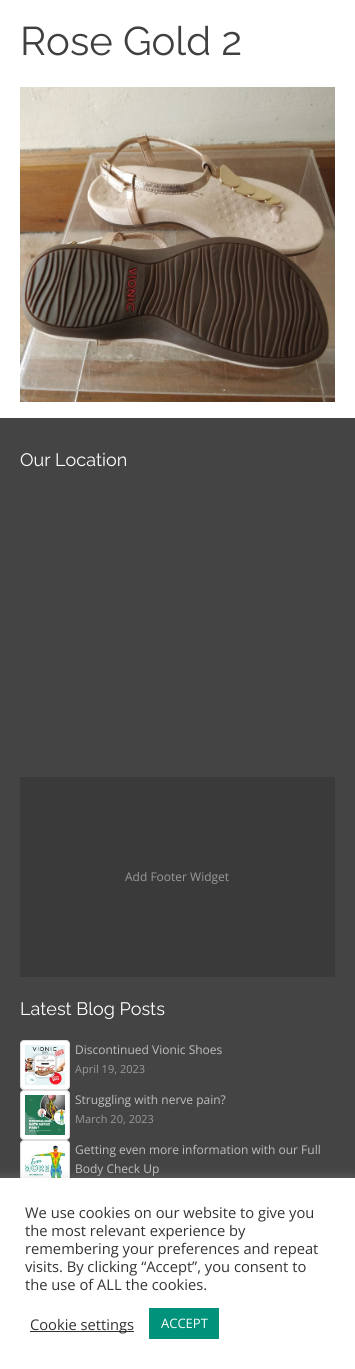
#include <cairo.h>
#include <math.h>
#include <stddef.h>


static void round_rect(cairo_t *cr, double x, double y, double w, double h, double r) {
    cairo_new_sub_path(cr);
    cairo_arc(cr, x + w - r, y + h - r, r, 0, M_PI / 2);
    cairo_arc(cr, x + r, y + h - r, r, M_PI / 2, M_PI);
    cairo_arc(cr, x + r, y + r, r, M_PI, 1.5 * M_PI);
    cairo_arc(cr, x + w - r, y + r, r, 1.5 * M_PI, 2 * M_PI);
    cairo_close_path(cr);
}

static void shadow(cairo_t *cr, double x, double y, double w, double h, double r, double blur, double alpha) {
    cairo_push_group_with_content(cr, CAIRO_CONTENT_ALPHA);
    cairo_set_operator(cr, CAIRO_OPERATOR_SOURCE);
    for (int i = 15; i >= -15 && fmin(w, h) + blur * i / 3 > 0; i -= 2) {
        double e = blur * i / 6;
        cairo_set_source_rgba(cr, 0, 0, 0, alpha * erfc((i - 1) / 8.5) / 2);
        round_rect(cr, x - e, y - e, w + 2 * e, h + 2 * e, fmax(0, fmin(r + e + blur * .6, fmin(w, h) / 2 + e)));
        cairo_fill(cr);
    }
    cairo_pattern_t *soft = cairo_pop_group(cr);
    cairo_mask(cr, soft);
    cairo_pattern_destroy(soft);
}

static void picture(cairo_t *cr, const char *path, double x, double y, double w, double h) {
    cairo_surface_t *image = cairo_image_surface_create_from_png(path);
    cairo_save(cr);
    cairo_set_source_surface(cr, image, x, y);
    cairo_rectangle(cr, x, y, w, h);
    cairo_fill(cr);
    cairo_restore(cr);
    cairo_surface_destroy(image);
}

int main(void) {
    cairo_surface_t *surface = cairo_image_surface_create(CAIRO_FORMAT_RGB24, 355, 1369);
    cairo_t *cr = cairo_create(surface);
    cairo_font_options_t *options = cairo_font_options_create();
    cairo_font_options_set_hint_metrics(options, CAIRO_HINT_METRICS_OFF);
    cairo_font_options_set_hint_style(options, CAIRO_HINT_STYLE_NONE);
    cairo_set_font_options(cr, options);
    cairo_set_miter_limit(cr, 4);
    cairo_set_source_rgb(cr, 1, 1, 1);
    cairo_paint(cr);
    cairo_select_font_face(cr, "Raleway", CAIRO_FONT_SLANT_NORMAL, CAIRO_FONT_WEIGHT_NORMAL);
    cairo_set_font_size(cr, 40);
    cairo_set_source_rgb(cr, 0.251, 0.251, 0.251);
    cairo_move_to(cr, 20, 55);
    cairo_show_text(cr, "Rose Gold 2");
    picture(cr, "img1.png", 20, 87, 315, 315);
    cairo_set_source_rgb(cr, 0.267, 0.267, 0.267);
    cairo_rectangle(cr, 0, 418, 355, 760);
    cairo_fill(cr);
    cairo_set_font_size(cr, 18);
    cairo_set_source_rgb(cr, 1, 1, 1);
    cairo_move_to(cr, 20, 466);
    cairo_show_text(cr, "Our Location");
    cairo_set_source_rgb(cr, 0.227, 0.227, 0.227);
    cairo_rectangle(cr, 20, 777, 315, 200);
    cairo_fill(cr);
    cairo_select_font_face(cr, "Open Sans", CAIRO_FONT_SLANT_NORMAL, CAIRO_FONT_WEIGHT_NORMAL);
    cairo_set_font_size(cr, 12);
    cairo_set_source_rgb(cr, 0.6, 0.6, 0.6);
    cairo_move_to(cr, 125, 881);
    cairo_show_text(cr, "Add Footer Widget");
    cairo_select_font_face(cr, "Raleway", CAIRO_FONT_SLANT_NORMAL, CAIRO_FONT_WEIGHT_NORMAL);
    cairo_set_font_size(cr, 18);
    cairo_set_source_rgb(cr, 1, 1, 1);
    cairo_move_to(cr, 20, 1015);
    cairo_show_text(cr, "Latest Blog Posts");
    round_rect(cr, 20.5, 1040.5, 49, 49, 3.5);
    cairo_fill_preserve(cr);
    cairo_set_source_rgb(cr, 0.867, 0.867, 0.867);
    cairo_set_line_width(cr, 1);
    cairo_stroke(cr);
    picture(cr, "img2.png", 25, 1045, 40, 40);
    cairo_select_font_face(cr, "Open Sans", CAIRO_FONT_SLANT_NORMAL, CAIRO_FONT_WEIGHT_NORMAL);
    cairo_set_font_size(cr, 12);
    cairo_set_source_rgb(cr, 0.749, 0.749, 0.749);
    cairo_move_to(cr, 75, 1054);
    cairo_show_text(cr, "Discontinued Vionic Shoes");
    cairo_set_font_size(cr, 11);
    cairo_set_source_rgb(cr, 0.6, 0.6, 0.6);
    cairo_move_to(cr, 75, 1073);
    cairo_show_text(cr, "April 19, 2023");
    cairo_set_source_rgb(cr, 1, 1, 1);
    round_rect(cr, 20.5, 1090.5, 49, 49, 3.5);
    cairo_fill_preserve(cr);
    cairo_set_source_rgb(cr, 0.867, 0.867, 0.867);
    cairo_stroke(cr);
    picture(cr, "img3.png", 25, 1095, 40, 40);
    cairo_set_font_size(cr, 12);
    cairo_set_source_rgb(cr, 0.749, 0.749, 0.749);
    cairo_move_to(cr, 75, 1104);
    cairo_show_text(cr, "Struggling with nerve pain?");
    cairo_set_font_size(cr, 11);
    cairo_set_source_rgb(cr, 0.6, 0.6, 0.6);
    cairo_move_to(cr, 75, 1123);
    cairo_show_text(cr, "March 20, 2023");
    cairo_set_source_rgb(cr, 1, 1, 1);
    round_rect(cr, 20.5, 1140.5, 49, 49, 3.5);
    cairo_fill_preserve(cr);
    cairo_set_source_rgb(cr, 0.867, 0.867, 0.867);
    cairo_stroke(cr);
    picture(cr, "img4.png", 25, 1145, 40, 33);
    cairo_set_font_size(cr, 12);
    cairo_set_source_rgb(cr, 0.749, 0.749, 0.749);
    cairo_move_to(cr, 75, 1154);
    cairo_show_text(cr, "Getting even more information with our Full");
    cairo_move_to(cr, 75, 1173);
    cairo_show_text(cr, "Body Check Up");
    cairo_set_source_rgb(cr, 0.675, 0.671, 0.671);
    shadow(cr, 0, 1177, 355, 191, 0, 5, 0.3);
    cairo_set_source_rgb(cr, 1, 1, 1);
    cairo_rectangle(cr, 0, 1178, 355, 191);
    cairo_fill(cr);
    cairo_set_font_size(cr, 14.7);
    cairo_set_source_rgb(cr, 0.2, 0.2, 0.2);
    cairo_move_to(cr, 25, 1218);
    cairo_show_text(cr, "We use cookies on our website to give you");
    cairo_move_to(cr, 25, 1236);
    cairo_show_text(cr, "the most relevant experience by");
    cairo_move_to(cr, 25, 1254);
    cairo_show_text(cr, "remembering your preferences and repeat");
    cairo_move_to(cr, 25, 1272);
    cairo_show_text(cr, "visits. By clicking “Accept”, you consent to");
    cairo_move_to(cr, 25, 1290);
    cairo_show_text(cr, "the use of ALL the cookies.");
    cairo_rectangle(cr, 30, 1331, 104, 1);
    cairo_fill(cr);
    cairo_move_to(cr, 30, 1330);
    cairo_show_text(cr, "Cookie settings");
    cairo_set_source_rgb(cr, 0, 0.573, 0.478);
    cairo_rectangle(cr, 149, 1308, 70, 31);
    cairo_fill(cr);
    cairo_set_font_size(cr, 13);
    cairo_set_source_rgb(cr, 1, 1, 1);
    cairo_move_to(cr, 161, 1328);
    cairo_show_text(cr, "ACCEPT");
    cairo_surface_write_to_png(surface, "page.png");
    cairo_font_options_destroy(options);
    cairo_destroy(cr);
    cairo_surface_destroy(surface);
    return 0;
}
